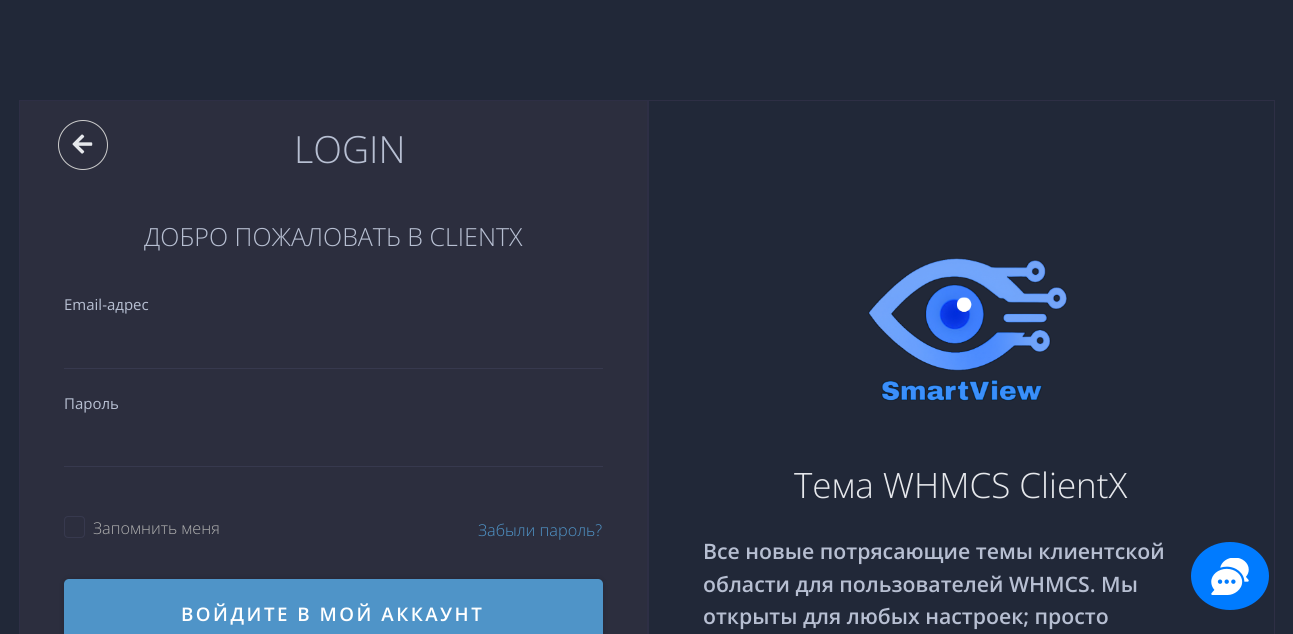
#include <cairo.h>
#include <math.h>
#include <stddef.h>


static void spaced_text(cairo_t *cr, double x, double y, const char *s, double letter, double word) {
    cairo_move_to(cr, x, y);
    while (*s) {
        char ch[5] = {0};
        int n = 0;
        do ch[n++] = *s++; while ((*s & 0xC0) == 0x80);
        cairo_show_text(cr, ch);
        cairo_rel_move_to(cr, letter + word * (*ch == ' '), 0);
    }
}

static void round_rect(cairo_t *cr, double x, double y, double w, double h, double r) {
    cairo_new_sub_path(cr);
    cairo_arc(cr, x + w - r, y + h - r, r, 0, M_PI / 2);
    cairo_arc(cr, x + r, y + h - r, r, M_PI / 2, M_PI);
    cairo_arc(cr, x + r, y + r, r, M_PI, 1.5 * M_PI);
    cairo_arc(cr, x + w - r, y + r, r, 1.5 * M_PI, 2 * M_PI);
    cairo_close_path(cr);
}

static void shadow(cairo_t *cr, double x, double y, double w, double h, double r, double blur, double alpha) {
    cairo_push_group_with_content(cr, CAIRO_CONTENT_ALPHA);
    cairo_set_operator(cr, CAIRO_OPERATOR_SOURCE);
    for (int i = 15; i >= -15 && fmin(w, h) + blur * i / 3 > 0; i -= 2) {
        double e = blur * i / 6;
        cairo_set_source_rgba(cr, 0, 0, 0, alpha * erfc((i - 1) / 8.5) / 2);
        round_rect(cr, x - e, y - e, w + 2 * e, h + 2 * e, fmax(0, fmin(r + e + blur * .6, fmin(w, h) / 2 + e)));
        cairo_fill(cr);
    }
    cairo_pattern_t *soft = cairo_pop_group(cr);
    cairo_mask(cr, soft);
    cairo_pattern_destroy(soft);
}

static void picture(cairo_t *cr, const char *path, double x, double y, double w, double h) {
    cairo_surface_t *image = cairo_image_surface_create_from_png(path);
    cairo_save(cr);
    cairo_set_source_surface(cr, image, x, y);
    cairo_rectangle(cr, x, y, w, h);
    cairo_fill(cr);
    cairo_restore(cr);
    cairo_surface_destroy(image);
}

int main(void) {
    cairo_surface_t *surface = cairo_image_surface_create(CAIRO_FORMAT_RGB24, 1293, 634);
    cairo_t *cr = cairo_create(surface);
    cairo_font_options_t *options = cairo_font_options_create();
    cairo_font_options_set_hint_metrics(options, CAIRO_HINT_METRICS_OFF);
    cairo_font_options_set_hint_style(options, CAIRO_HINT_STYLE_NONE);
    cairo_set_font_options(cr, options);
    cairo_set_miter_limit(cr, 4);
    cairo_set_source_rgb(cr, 0.129, 0.157, 0.22);
    cairo_paint(cr);
    cairo_set_source_rgb(cr, 0.173, 0.18, 0.243);
    cairo_rectangle(cr, 19.5, 100.5, 628, 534);
    cairo_fill_preserve(cr);
    cairo_set_source_rgb(cr, 0.18, 0.184, 0.271);
    cairo_set_line_width(cr, 1);
    cairo_stroke(cr);
    cairo_arc(cr, 83, 145, 24.5, 0, 2 * M_PI);
    cairo_set_source_rgb(cr, 0.8, 0.8, 0.8);
    cairo_stroke(cr);
    picture(cr, "img1.png", 72, 134, 21, 20);
    cairo_select_font_face(cr, "Open Sans Light", CAIRO_FONT_SLANT_NORMAL, CAIRO_FONT_WEIGHT_NORMAL);
    cairo_set_font_size(cr, 37.5);
    cairo_set_source_rgb(cr, 0.718, 0.749, 0.824);
    cairo_move_to(cr, 294, 163);
    cairo_show_text(cr, "LOGIN");
    cairo_set_font_size(cr, 25);
    cairo_move_to(cr, 144, 246);
    cairo_show_text(cr, "ДОБРО ПОЖАЛОВАТЬ В CLIENTX");
    cairo_select_font_face(cr, "Open Sans", CAIRO_FONT_SLANT_NORMAL, CAIRO_FONT_WEIGHT_NORMAL);
    cairo_set_font_size(cr, 15);
    cairo_move_to(cr, 64, 310);
    cairo_show_text(cr, "Email-адрес");
    cairo_set_source_rgb(cr, 0.216, 0.224, 0.306);
    cairo_rectangle(cr, 64, 368, 539, 1);
    cairo_fill(cr);
    cairo_set_source_rgb(cr, 0.718, 0.749, 0.824);
    cairo_move_to(cr, 64, 409);
    cairo_show_text(cr, "Пароль");
    cairo_set_source_rgb(cr, 0.216, 0.224, 0.306);
    cairo_rectangle(cr, 64, 466, 539, 1);
    cairo_fill(cr);
    round_rect(cr, 64.5, 516.5, 20, 21, 3.5);
    cairo_stroke(cr);
    cairo_select_font_face(cr, "Open Sans Light", CAIRO_FONT_SLANT_NORMAL, CAIRO_FONT_WEIGHT_NORMAL);
    cairo_set_font_size(cr, 16.25);
    cairo_set_source_rgb(cr, 0.69, 0.69, 0.69);
    cairo_move_to(cr, 93, 534);
    cairo_show_text(cr, "Запомнить меня");
    cairo_set_source_rgb(cr, 0.31, 0.58, 0.784);
    cairo_move_to(cr, 478, 536);
    cairo_show_text(cr, "Забыли пароль?");
    cairo_set_source_rgb(cr, 0, 0, 0);
    shadow(cr, 64, 579, 539, 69, 5, 3, 0.18);
    cairo_set_source_rgb(cr, 0.31, 0.58, 0.784);
    round_rect(cr, 64, 579, 539, 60, 5);
    cairo_fill(cr);
    cairo_select_font_face(cr, "Open Sans SemiBold", CAIRO_FONT_SLANT_NORMAL, CAIRO_FONT_WEIGHT_NORMAL);
    cairo_set_font_size(cr, 18.75);
    cairo_set_source_rgb(cr, 1, 1, 1);
    spaced_text(cr, 181, 621, "ВОЙДИТЕ В МОЙ АККАУНТ", 2.5, 0);
    cairo_rectangle(cr, 648.5, 100.5, 626, 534);
    cairo_set_source_rgb(cr, 0.18, 0.184, 0.271);
    cairo_stroke(cr);
    picture(cr, "img2.png", 868, 258, 200, 143);
    cairo_select_font_face(cr, "Open Sans Light", CAIRO_FONT_SLANT_NORMAL, CAIRO_FONT_WEIGHT_NORMAL);
    cairo_set_font_size(cr, 35);
    cairo_set_source_rgb(cr, 0.902, 0.91, 0.925);
    cairo_move_to(cr, 794, 498);
    cairo_show_text(cr, "Тема WHMCS ClientX");
    cairo_select_font_face(cr, "Open Sans SemiBold", CAIRO_FONT_SLANT_NORMAL, CAIRO_FONT_WEIGHT_NORMAL);
    cairo_set_font_size(cr, 21.25);
    cairo_set_source_rgb(cr, 0.718, 0.749, 0.824);
    cairo_move_to(cr, 703, 559);
    cairo_show_text(cr, "Все новые потрясающие темы клиентской");
    cairo_move_to(cr, 703, 592);
    cairo_show_text(cr, "области для пользователей WHMCS. Мы");
    cairo_move_to(cr, 703, 624);
    cairo_show_text(cr, "открыты для любых настроек; просто");
    cairo_set_source_rgb(cr, 0, 0.482, 1);
    cairo_new_path(cr);
    cairo_move_to(cr, 1230, 542);
    cairo_curve_to(cr, 1251.5, 542, 1269, 557, 1269, 576);
    cairo_curve_to(cr, 1269, 595, 1251.5, 610, 1230, 610);
    cairo_curve_to(cr, 1208.5, 610, 1191, 595, 1191, 576);
    cairo_curve_to(cr, 1191, 557, 1208.5, 542, 1230, 542);
    cairo_close_path(cr);
    cairo_fill(cr);
    picture(cr, "img3.png", 1211, 558, 38, 37);
    cairo_surface_write_to_png(surface, "page.png");
    cairo_font_options_destroy(options);
    cairo_destroy(cr);
    cairo_surface_destroy(surface);
    return 0;
}
